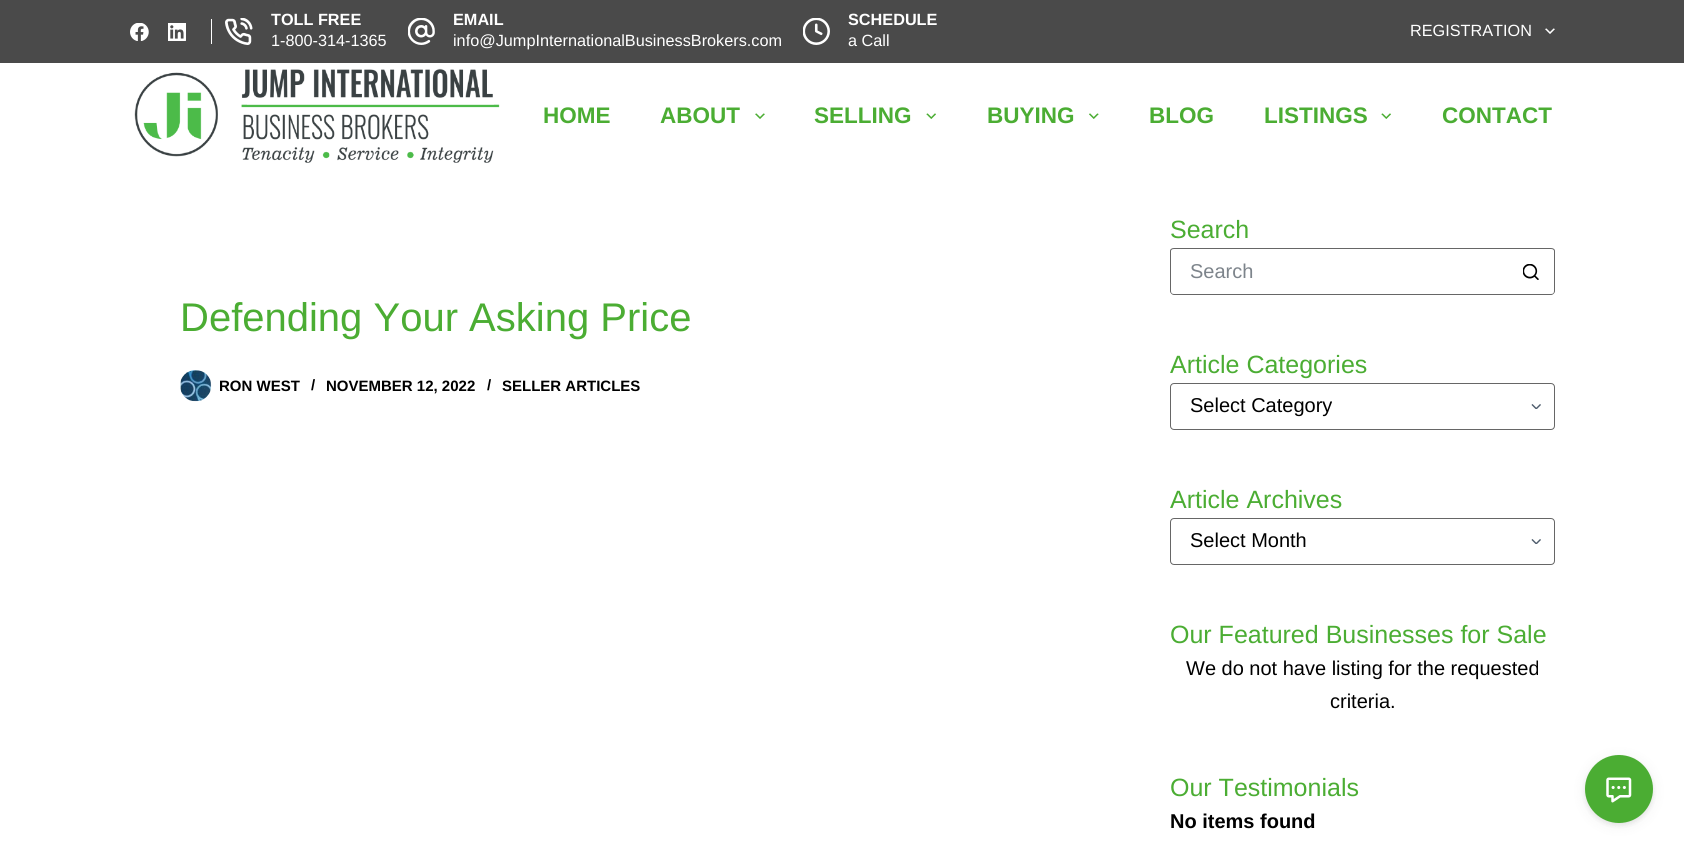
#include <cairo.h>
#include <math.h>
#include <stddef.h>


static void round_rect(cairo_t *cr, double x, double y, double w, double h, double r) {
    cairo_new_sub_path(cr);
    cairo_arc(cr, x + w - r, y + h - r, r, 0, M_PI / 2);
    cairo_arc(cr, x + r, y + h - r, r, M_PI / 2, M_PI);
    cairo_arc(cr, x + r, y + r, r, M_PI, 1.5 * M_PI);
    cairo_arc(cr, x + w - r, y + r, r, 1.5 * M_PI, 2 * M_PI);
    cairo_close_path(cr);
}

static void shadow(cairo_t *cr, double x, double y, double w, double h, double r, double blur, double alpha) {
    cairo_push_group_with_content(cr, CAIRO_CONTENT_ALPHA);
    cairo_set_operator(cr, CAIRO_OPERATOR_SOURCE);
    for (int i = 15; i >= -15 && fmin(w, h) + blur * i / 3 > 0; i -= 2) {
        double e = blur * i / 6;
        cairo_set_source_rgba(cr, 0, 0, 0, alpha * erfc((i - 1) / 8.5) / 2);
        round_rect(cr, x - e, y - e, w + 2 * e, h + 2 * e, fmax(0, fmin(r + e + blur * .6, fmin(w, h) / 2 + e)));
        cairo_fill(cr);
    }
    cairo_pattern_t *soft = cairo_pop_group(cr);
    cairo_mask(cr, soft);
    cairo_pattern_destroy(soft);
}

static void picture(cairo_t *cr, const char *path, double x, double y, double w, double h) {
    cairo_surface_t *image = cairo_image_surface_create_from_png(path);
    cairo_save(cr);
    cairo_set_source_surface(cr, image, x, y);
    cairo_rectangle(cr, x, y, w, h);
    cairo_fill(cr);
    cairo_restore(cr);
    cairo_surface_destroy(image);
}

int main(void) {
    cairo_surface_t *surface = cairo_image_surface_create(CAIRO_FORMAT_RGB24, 1684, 855);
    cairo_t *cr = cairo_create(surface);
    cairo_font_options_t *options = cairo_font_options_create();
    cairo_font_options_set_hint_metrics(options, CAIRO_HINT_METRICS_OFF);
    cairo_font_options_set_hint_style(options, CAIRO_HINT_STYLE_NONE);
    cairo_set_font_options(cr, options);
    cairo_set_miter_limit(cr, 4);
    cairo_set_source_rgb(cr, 1, 1, 1);
    cairo_paint(cr);
    cairo_set_source_rgb(cr, 0.29, 0.29, 0.29);
    cairo_rectangle(cr, 0, 0, 1684, 63);
    cairo_fill(cr);
    picture(cr, "img1.png", 130, 23, 19, 18);
    picture(cr, "img2.png", 168, 23, 18, 18);
    cairo_set_source_rgb(cr, 1, 1, 1);
    cairo_rectangle(cr, 211, 19, 1, 25);
    cairo_fill(cr);
    picture(cr, "img3.png", 225, 18, 28, 27);
    cairo_select_font_face(cr, "Liberation Sans", CAIRO_FONT_SLANT_NORMAL, CAIRO_FONT_WEIGHT_BOLD);
    cairo_set_font_size(cr, 16.25);
    cairo_move_to(cr, 271, 25);
    cairo_show_text(cr, "TOLL FREE");
    cairo_select_font_face(cr, "Liberation Sans", CAIRO_FONT_SLANT_NORMAL, CAIRO_FONT_WEIGHT_NORMAL);
    cairo_move_to(cr, 271, 46);
    cairo_show_text(cr, "1-800-314-1365");
    picture(cr, "img4.png", 408, 18, 27, 27);
    cairo_select_font_face(cr, "Liberation Sans", CAIRO_FONT_SLANT_NORMAL, CAIRO_FONT_WEIGHT_BOLD);
    cairo_move_to(cr, 453, 25);
    cairo_show_text(cr, "EMAIL");
    cairo_select_font_face(cr, "Liberation Sans", CAIRO_FONT_SLANT_NORMAL, CAIRO_FONT_WEIGHT_NORMAL);
    cairo_move_to(cr, 453, 46);
    cairo_show_text(cr, "info@JumpInternationalBusinessBrokers.com");
    picture(cr, "img5.png", 803, 18, 27, 27);
    cairo_select_font_face(cr, "Liberation Sans", CAIRO_FONT_SLANT_NORMAL, CAIRO_FONT_WEIGHT_BOLD);
    cairo_move_to(cr, 848, 25);
    cairo_show_text(cr, "SCHEDULE");
    cairo_select_font_face(cr, "Liberation Sans", CAIRO_FONT_SLANT_NORMAL, CAIRO_FONT_WEIGHT_NORMAL);
    cairo_move_to(cr, 848, 46);
    cairo_show_text(cr, "a Call");
    cairo_move_to(cr, 1410, 36);
    cairo_show_text(cr, "REGISTRATION");
    picture(cr, "img6.png", 1545, 28, 10, 6);
    picture(cr, "img7.png", 134, 68, 366, 95);
    cairo_select_font_face(cr, "Liberation Sans", CAIRO_FONT_SLANT_NORMAL, CAIRO_FONT_WEIGHT_BOLD);
    cairo_set_font_size(cr, 22.5);
    cairo_set_source_rgb(cr, 0.294, 0.678, 0.2);
    cairo_move_to(cr, 543, 123);
    cairo_show_text(cr, "HOME");
    cairo_move_to(cr, 660, 123);
    cairo_show_text(cr, "ABOUT");
    picture(cr, "img8.png", 755, 113, 10, 6);
    cairo_move_to(cr, 814, 123);
    cairo_show_text(cr, "SELLING");
    picture(cr, "img9.png", 926, 113, 10, 6);
    cairo_move_to(cr, 987, 123);
    cairo_show_text(cr, "BUYING");
    picture(cr, "img10.png", 1089, 113, 10, 6);
    cairo_move_to(cr, 1149, 123);
    cairo_show_text(cr, "BLOG");
    cairo_move_to(cr, 1264, 123);
    cairo_show_text(cr, "LISTINGS");
    picture(cr, "img9.png", 1381, 113, 10, 6);
    cairo_move_to(cr, 1442, 123);
    cairo_show_text(cr, "CONTACT");
    cairo_select_font_face(cr, "Liberation Sans", CAIRO_FONT_SLANT_NORMAL, CAIRO_FONT_WEIGHT_NORMAL);
    cairo_set_font_size(cr, 40);
    cairo_move_to(cr, 180, 331);
    cairo_show_text(cr, "Defending Your Asking Price");
    picture(cr, "img11.png", 180, 370, 32, 32);
    cairo_select_font_face(cr, "Liberation Sans", CAIRO_FONT_SLANT_NORMAL, CAIRO_FONT_WEIGHT_BOLD);
    cairo_set_font_size(cr, 15);
    cairo_set_source_rgb(cr, 0, 0, 0);
    cairo_move_to(cr, 219, 391);
    cairo_show_text(cr, "RON WEST");
    cairo_move_to(cr, 311, 390);
    cairo_show_text(cr, "/");
    cairo_move_to(cr, 326, 391);
    cairo_show_text(cr, "NOVEMBER 12, 2022");
    cairo_move_to(cr, 487, 390);
    cairo_show_text(cr, "/");
    cairo_move_to(cr, 502, 391);
    cairo_show_text(cr, "SELLER ARTICLES");
    cairo_select_font_face(cr, "Liberation Sans", CAIRO_FONT_SLANT_NORMAL, CAIRO_FONT_WEIGHT_NORMAL);
    cairo_set_font_size(cr, 25);
    cairo_set_source_rgb(cr, 0.294, 0.678, 0.2);
    cairo_move_to(cr, 1170, 238);
    cairo_show_text(cr, "Search");
    cairo_set_source_rgb(cr, 0.4, 0.4, 0.4);
    cairo_set_fill_rule(cr, CAIRO_FILL_RULE_EVEN_ODD);
    cairo_new_path(cr);
    cairo_move_to(cr, 1174, 248);
    cairo_line_to(cr, 1508, 248);
    cairo_line_to(cr, 1508, 295);
    cairo_line_to(cr, 1174, 295);
    cairo_curve_to(cr, 1172, 295, 1170, 293, 1170, 291);
    cairo_line_to(cr, 1170, 251);
    cairo_curve_to(cr, 1170, 249, 1172, 248, 1174, 248);
    cairo_close_path(cr);
    cairo_move_to(cr, 1174, 249);
    cairo_line_to(cr, 1508, 249);
    cairo_line_to(cr, 1508, 294);
    cairo_line_to(cr, 1174, 294);
    cairo_curve_to(cr, 1172, 294, 1171, 293, 1171, 291);
    cairo_line_to(cr, 1171, 251);
    cairo_curve_to(cr, 1171, 250, 1172, 249, 1174, 249);
    cairo_close_path(cr);
    cairo_fill(cr);
    cairo_set_font_size(cr, 20);
    cairo_set_source_rgb(cr, 0.49, 0.518, 0.545);
    cairo_move_to(cr, 1190, 278);
    cairo_show_text(cr, "Search");
    cairo_set_source_rgb(cr, 0.4, 0.4, 0.4);
    cairo_new_path(cr);
    cairo_move_to(cr, 1508, 248);
    cairo_line_to(cr, 1551, 248);
    cairo_curve_to(cr, 1553, 248, 1555, 249, 1555, 251);
    cairo_line_to(cr, 1555, 291);
    cairo_curve_to(cr, 1555, 293, 1553, 295, 1551, 295);
    cairo_line_to(cr, 1508, 295);
    cairo_close_path(cr);
    cairo_move_to(cr, 1508, 249);
    cairo_line_to(cr, 1551, 249);
    cairo_curve_to(cr, 1553, 249, 1554, 250, 1554, 251);
    cairo_line_to(cr, 1554, 291);
    cairo_curve_to(cr, 1554, 293, 1553, 294, 1551, 294);
    cairo_line_to(cr, 1508, 294);
    cairo_close_path(cr);
    cairo_fill(cr);
    picture(cr, "img12.png", 1523, 264, 16, 16);
    cairo_set_font_size(cr, 25);
    cairo_set_source_rgb(cr, 0.294, 0.678, 0.2);
    cairo_move_to(cr, 1170, 373);
    cairo_show_text(cr, "Article Categories");
    picture(cr, "img13.png", 1531, 404, 10, 5);
    round_rect(cr, 1170.5, 383.5, 384, 46, 3.5);
    cairo_set_source_rgb(cr, 0.4, 0.4, 0.4);
    cairo_set_line_width(cr, 1);
    cairo_stroke(cr);
    cairo_set_font_size(cr, 20);
    cairo_set_source_rgb(cr, 0, 0, 0);
    cairo_move_to(cr, 1190, 412);
    cairo_show_text(cr, "Select Category");
    cairo_set_font_size(cr, 25);
    cairo_set_source_rgb(cr, 0.294, 0.678, 0.2);
    cairo_move_to(cr, 1170, 508);
    cairo_show_text(cr, "Article Archives");
    picture(cr, "img13.png", 1531, 539, 10, 5);
    round_rect(cr, 1170.5, 518.5, 384, 46, 3.5);
    cairo_set_source_rgb(cr, 0.4, 0.4, 0.4);
    cairo_stroke(cr);
    cairo_set_font_size(cr, 20);
    cairo_set_source_rgb(cr, 0, 0, 0);
    cairo_move_to(cr, 1190, 547);
    cairo_show_text(cr, "Select Month");
    cairo_set_font_size(cr, 25);
    cairo_set_source_rgb(cr, 0.294, 0.678, 0.2);
    cairo_move_to(cr, 1170, 643);
    cairo_show_text(cr, "Our Featured Businesses for Sale");
    cairo_set_font_size(cr, 20);
    cairo_set_source_rgb(cr, 0, 0, 0);
    cairo_move_to(cr, 1186, 675);
    cairo_show_text(cr, "We do not have listing for the requested");
    cairo_move_to(cr, 1330, 708);
    cairo_show_text(cr, "criteria.");
    cairo_set_font_size(cr, 25);
    cairo_set_source_rgb(cr, 0.294, 0.678, 0.2);
    cairo_move_to(cr, 1170, 796);
    cairo_show_text(cr, "Our Testimonials");
    cairo_select_font_face(cr, "Liberation Sans", CAIRO_FONT_SLANT_NORMAL, CAIRO_FONT_WEIGHT_BOLD);
    cairo_set_font_size(cr, 20);
    cairo_set_source_rgb(cr, 0, 0, 0);
    cairo_move_to(cr, 1170, 828);
    cairo_show_text(cr, "No items found");
    cairo_set_source_rgb(cr, 0, 0, 0);
    shadow(cr, 1585, 758, 68, 67, 33.5, 2.5, 0.08);
    shadow(cr, 1585, 758, 68, 67, 33.5, 7.5, 0.06);
    cairo_set_source_rgb(cr, 0.294, 0.678, 0.2);
    cairo_arc(cr, 1619, 789, 34, 0, 2 * M_PI);
    cairo_fill(cr);
    picture(cr, "img14.png", 1606, 777, 26, 26);
    cairo_surface_write_to_png(surface, "page.png");
    cairo_font_options_destroy(options);
    cairo_destroy(cr);
    cairo_surface_destroy(surface);
    return 0;
}
